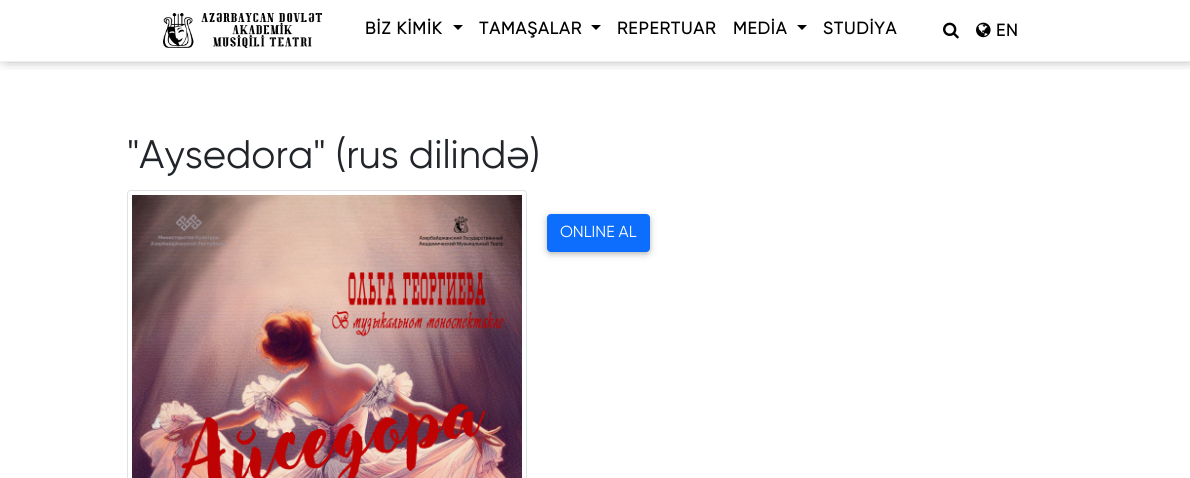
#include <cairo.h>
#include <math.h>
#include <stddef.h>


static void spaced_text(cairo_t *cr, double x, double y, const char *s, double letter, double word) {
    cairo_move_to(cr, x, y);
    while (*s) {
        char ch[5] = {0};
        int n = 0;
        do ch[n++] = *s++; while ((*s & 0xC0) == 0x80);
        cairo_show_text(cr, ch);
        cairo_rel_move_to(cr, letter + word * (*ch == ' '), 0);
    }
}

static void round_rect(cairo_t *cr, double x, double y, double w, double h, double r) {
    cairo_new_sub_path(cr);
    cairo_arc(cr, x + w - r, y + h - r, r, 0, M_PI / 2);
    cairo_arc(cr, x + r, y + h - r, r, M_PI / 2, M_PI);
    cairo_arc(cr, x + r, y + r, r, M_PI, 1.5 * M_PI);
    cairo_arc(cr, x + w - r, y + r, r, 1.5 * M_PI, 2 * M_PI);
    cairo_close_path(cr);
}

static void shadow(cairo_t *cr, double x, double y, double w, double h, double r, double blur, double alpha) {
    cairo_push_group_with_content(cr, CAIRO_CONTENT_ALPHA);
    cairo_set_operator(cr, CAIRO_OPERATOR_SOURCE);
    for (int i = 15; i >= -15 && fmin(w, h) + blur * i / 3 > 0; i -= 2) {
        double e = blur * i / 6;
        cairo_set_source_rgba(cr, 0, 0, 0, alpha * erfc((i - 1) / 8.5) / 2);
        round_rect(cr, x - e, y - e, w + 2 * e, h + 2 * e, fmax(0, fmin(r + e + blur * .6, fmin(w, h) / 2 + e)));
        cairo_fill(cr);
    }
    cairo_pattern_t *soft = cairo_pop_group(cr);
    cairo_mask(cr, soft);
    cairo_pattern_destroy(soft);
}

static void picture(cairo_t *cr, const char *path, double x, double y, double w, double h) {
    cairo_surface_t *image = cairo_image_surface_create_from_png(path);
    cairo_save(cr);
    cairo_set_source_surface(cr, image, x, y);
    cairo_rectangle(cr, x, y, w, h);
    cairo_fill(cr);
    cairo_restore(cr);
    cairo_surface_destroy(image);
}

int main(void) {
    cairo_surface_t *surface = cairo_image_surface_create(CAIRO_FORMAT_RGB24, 1190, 478);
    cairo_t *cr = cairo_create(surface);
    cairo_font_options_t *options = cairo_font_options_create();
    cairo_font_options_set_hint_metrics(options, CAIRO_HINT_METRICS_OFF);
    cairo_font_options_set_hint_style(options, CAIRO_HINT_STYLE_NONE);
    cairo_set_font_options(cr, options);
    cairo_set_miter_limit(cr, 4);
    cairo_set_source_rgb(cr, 1, 1, 1);
    cairo_paint(cr);
    cairo_save(cr);
    cairo_rectangle(cr, 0, 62, 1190, 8);
    cairo_clip(cr);
    cairo_set_source_rgb(cr, 0, 0, 0);
    shadow(cr, 6, -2, 1184, 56, 0, 8, 0.9);
    cairo_restore(cr);
    cairo_set_source_rgb(cr, 0.933, 0.933, 0.933);
    cairo_rectangle(cr, 0, 61, 1190, 1);
    cairo_fill(cr);
    picture(cr, "img1.png", 163, 13, 159, 35);
    cairo_select_font_face(cr, "Gilroy", CAIRO_FONT_SLANT_NORMAL, CAIRO_FONT_WEIGHT_BOLD);
    cairo_set_font_size(cr, 17);
    cairo_set_source_rgb(cr, 0, 0, 0);
    spaced_text(cr, 365, 34, "BİZ KİMİK", 1, 0);
    cairo_new_path(cr);
    cairo_move_to(cr, 453, 25);
    cairo_line_to(cr, 463, 25);
    cairo_line_to(cr, 458, 30);
    cairo_close_path(cr);
    cairo_fill(cr);
    spaced_text(cr, 479, 34, "TAMAŞALAR", 1, 0);
    cairo_new_path(cr);
    cairo_move_to(cr, 591, 25);
    cairo_line_to(cr, 601, 25);
    cairo_line_to(cr, 596, 30);
    cairo_close_path(cr);
    cairo_fill(cr);
    spaced_text(cr, 617, 34, "REPERTUAR", 1, 0);
    spaced_text(cr, 733, 34, "MEDİA", 1, 0);
    cairo_new_path(cr);
    cairo_move_to(cr, 797, 25);
    cairo_line_to(cr, 807, 25);
    cairo_line_to(cr, 802, 30);
    cairo_close_path(cr);
    cairo_fill(cr);
    spaced_text(cr, 823, 34, "STUDİYA", 1, 0);
    picture(cr, "img2.png", 943, 22, 16, 17);
    picture(cr, "img3.png", 976, 22, 15, 16);
    spaced_text(cr, 996, 36, "EN", 1, 0);
    cairo_select_font_face(cr, "Gilroy", CAIRO_FONT_SLANT_NORMAL, CAIRO_FONT_WEIGHT_NORMAL);
    cairo_set_font_size(cr, 39.8);
    cairo_set_source_rgb(cr, 0.129, 0.145, 0.161);
    cairo_move_to(cr, 127, 168);
    cairo_show_text(cr, "\"Aysedora\" (rus dilində)");
    round_rect(cr, 127.5, 190.5, 399, 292, 3.5);
    cairo_set_source_rgb(cr, 0.871, 0.886, 0.902);
    cairo_set_line_width(cr, 1);
    cairo_stroke(cr);
    picture(cr, "img4.png", 132, 195, 390, 283);
    cairo_set_source_rgb(cr, 0, 0, 0);
    shadow(cr, 547, 216, 103, 38, 4, 5, 0.1);
    shadow(cr, 547, 216, 103, 38, 4, 2.5, 0.2);
    cairo_set_source_rgb(cr, 0.051, 0.431, 0.992);
    round_rect(cr, 547.5, 214.5, 102, 37, 3.5);
    cairo_fill_preserve(cr);
    cairo_stroke(cr);
    cairo_set_font_size(cr, 16);
    cairo_set_source_rgb(cr, 1, 1, 1);
    cairo_move_to(cr, 560, 237);
    cairo_show_text(cr, "ONLINE AL");
    cairo_surface_write_to_png(surface, "page.png");
    cairo_font_options_destroy(options);
    cairo_destroy(cr);
    cairo_surface_destroy(surface);
    return 0;
}
